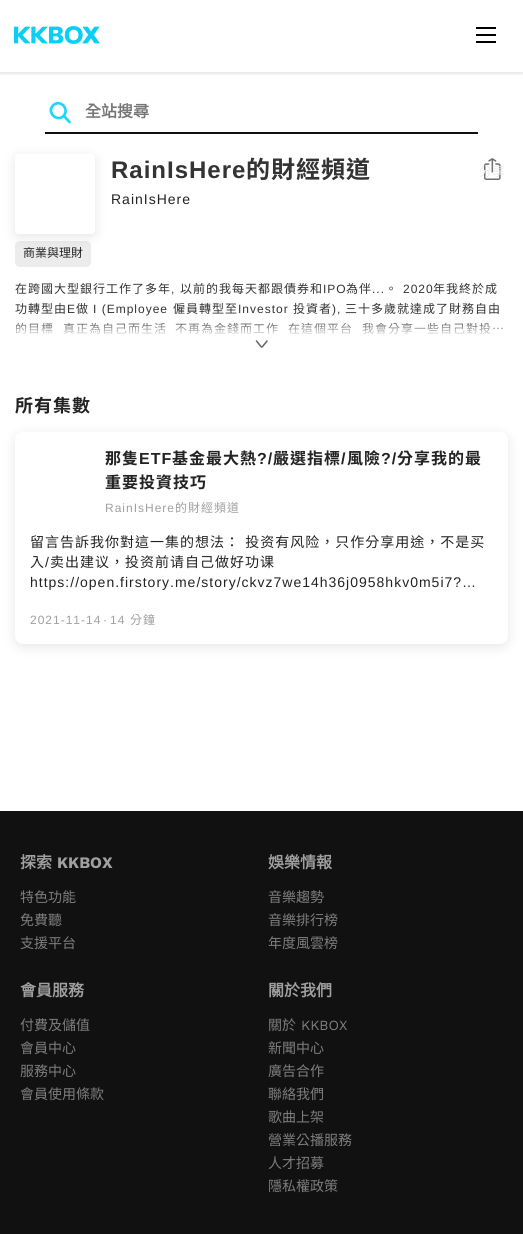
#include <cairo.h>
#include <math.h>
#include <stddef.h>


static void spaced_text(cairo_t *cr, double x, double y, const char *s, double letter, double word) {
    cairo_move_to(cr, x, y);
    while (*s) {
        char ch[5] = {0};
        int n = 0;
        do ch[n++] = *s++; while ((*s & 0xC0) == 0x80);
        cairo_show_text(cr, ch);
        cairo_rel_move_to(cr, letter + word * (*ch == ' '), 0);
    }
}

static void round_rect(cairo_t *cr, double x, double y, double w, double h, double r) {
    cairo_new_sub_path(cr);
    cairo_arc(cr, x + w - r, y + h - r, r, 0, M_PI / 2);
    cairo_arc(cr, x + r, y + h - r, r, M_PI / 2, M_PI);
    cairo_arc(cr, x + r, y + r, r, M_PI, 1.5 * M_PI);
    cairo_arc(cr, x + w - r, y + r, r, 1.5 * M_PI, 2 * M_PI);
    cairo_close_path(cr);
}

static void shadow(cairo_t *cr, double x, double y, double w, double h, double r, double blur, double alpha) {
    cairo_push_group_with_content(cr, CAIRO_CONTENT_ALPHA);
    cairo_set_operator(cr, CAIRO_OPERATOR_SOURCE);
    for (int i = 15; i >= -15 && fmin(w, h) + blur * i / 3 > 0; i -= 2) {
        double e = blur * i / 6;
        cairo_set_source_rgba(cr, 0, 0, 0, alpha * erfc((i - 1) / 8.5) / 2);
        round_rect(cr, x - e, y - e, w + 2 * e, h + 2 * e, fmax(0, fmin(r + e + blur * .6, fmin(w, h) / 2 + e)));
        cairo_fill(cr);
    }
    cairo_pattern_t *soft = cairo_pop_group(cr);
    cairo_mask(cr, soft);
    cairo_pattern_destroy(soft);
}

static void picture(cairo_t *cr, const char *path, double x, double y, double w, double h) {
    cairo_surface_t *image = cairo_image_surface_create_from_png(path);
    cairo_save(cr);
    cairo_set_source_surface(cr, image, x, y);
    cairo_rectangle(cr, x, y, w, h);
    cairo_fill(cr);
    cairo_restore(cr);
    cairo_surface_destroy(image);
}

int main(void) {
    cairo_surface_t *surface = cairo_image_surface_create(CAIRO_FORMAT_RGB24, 523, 1234);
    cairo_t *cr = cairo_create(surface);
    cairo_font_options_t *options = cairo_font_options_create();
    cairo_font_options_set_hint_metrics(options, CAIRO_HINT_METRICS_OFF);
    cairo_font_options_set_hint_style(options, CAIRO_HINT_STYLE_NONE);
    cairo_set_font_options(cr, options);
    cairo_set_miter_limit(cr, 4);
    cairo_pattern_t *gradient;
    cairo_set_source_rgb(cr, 1, 1, 1);
    cairo_paint(cr);
    cairo_save(cr);
    cairo_rectangle(cr, 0, 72, 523, 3);
    cairo_clip(cr);
    cairo_set_source_rgb(cr, 0, 0, 0);
    shadow(cr, 0, -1, 523, 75, 0, 1.5, 0.1);
    cairo_restore(cr);
    picture(cr, "img1.png", 14, 26, 86, 18);
    picture(cr, "img2.png", 476, 27, 20, 16);
    cairo_set_source_rgb(cr, 0.067, 0.067, 0.067);
    cairo_rectangle(cr, 45, 132, 433, 2);
    cairo_fill(cr);
    cairo_new_path(cr);
    cairo_move_to(cr, 53, 105.5);
    cairo_curve_to(cr, 60, 98.5, 70, 109, 63.5, 116);
    cairo_curve_to(cr, 56.5, 122.5, 46.5, 112, 53, 105.5);
    cairo_close_path(cr);
    cairo_move_to(cr, 64, 116);
    cairo_line_to(cr, 69.5, 122);
    cairo_set_source_rgb(cr, 0.114, 0.839, 1);
    cairo_set_line_width(cr, 2.7);
    cairo_set_line_cap(cr, CAIRO_LINE_CAP_ROUND);
    cairo_set_line_join(cr, CAIRO_LINE_JOIN_ROUND);
    cairo_stroke(cr);
    cairo_select_font_face(cr, "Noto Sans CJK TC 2", CAIRO_FONT_SLANT_NORMAL, CAIRO_FONT_WEIGHT_BOLD);
    cairo_set_font_size(cr, 16);
    cairo_set_source_rgb(cr, 0.459, 0.459, 0.459);
    cairo_move_to(cr, 85, 117);
    cairo_show_text(cr, "全站搜尋");
    cairo_set_source_rgb(cr, 0.922, 0.922, 0.922);
    round_rect(cr, 15, 241, 76, 26, 5);
    cairo_fill(cr);
    cairo_save(cr);
    cairo_set_fill_rule(cr, CAIRO_FILL_RULE_EVEN_ODD);
    cairo_new_path(cr);
    cairo_move_to(cr, 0, 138);
    cairo_line_to(cr, 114, 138);
    cairo_line_to(cr, 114, 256);
    cairo_line_to(cr, 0, 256);
    cairo_close_path(cr);
    cairo_move_to(cr, 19, 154);
    cairo_line_to(cr, 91, 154);
    cairo_curve_to(cr, 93, 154, 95, 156, 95, 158);
    cairo_line_to(cr, 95, 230);
    cairo_curve_to(cr, 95, 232, 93, 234, 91, 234);
    cairo_line_to(cr, 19, 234);
    cairo_curve_to(cr, 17, 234, 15, 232, 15, 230);
    cairo_line_to(cr, 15, 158);
    cairo_curve_to(cr, 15, 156, 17, 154, 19, 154);
    cairo_close_path(cr);
    cairo_clip(cr);
    cairo_set_source_rgb(cr, 0, 0, 0);
    shadow(cr, 15, 157, 80, 80, 4, 6, 0.1);
    cairo_restore(cr);
    cairo_select_font_face(cr, "Liberation Sans", CAIRO_FONT_SLANT_NORMAL, CAIRO_FONT_WEIGHT_BOLD);
    cairo_set_font_size(cr, 24);
    cairo_set_source_rgb(cr, 0.2, 0.2, 0.2);
    spaced_text(cr, 111, 178, "RainIsHere", 1, 0);
    cairo_select_font_face(cr, "Noto Sans CJK TC", CAIRO_FONT_SLANT_NORMAL, CAIRO_FONT_WEIGHT_BOLD);
    spaced_text(cr, 246, 178, "的財經頻道", 1, 0);
    cairo_select_font_face(cr, "Liberation Sans", CAIRO_FONT_SLANT_NORMAL, CAIRO_FONT_WEIGHT_NORMAL);
    cairo_set_font_size(cr, 14);
    cairo_set_source_rgb(cr, 0.137, 0.137, 0.137);
    spaced_text(cr, 111, 204, "RainIsHere", 1, 0);
    picture(cr, "img3.png", 484, 158, 17, 22);
    cairo_select_font_face(cr, "Noto Sans CJK TC", CAIRO_FONT_SLANT_NORMAL, CAIRO_FONT_WEIGHT_NORMAL);
    cairo_set_font_size(cr, 13);
    cairo_set_source_rgb(cr, 0.918, 0.918, 0.918);
    cairo_move_to(cr, 479, 176);
    cairo_show_text(cr, "分享");
    cairo_set_font_size(cr, 12);
    cairo_set_source_rgb(cr, 0.137, 0.137, 0.137);
    cairo_move_to(cr, 23, 257);
    cairo_show_text(cr, "商業與理財");
    cairo_set_source_rgb(cr, 0.2, 0.2, 0.2);
    spaced_text(cr, 15, 293, "在跨國大型銀行工作了多年", 1, 0);
    spaced_text(cr, 180, 293, "以前的我每天都跟債券和", 1, 0);
    cairo_select_font_face(cr, "Liberation Sans", CAIRO_FONT_SLANT_NORMAL, CAIRO_FONT_WEIGHT_NORMAL);
    spaced_text(cr, 323, 293, "IPO", 1, 0);
    cairo_select_font_face(cr, "Noto Sans CJK TC", CAIRO_FONT_SLANT_NORMAL, CAIRO_FONT_WEIGHT_NORMAL);
    spaced_text(cr, 346, 293, "為伴", 1, 0);
    spaced_text(cr, 385, 293, "。", 1, 0);
    cairo_select_font_face(cr, "Liberation Sans", CAIRO_FONT_SLANT_NORMAL, CAIRO_FONT_WEIGHT_NORMAL);
    spaced_text(cr, 403, 293, "2020", 1, 0);
    cairo_select_font_face(cr, "Noto Sans CJK TC", CAIRO_FONT_SLANT_NORMAL, CAIRO_FONT_WEIGHT_NORMAL);
    spaced_text(cr, 433, 293, "年我終於成", 1, 0);
    cairo_select_font_face(cr, "Liberation Sans", CAIRO_FONT_SLANT_NORMAL, CAIRO_FONT_WEIGHT_NORMAL);
    spaced_text(cr, 171, 293, ",", 1, 0);
    spaced_text(cr, 372, 293, "...", 1, 0);
    cairo_select_font_face(cr, "Noto Sans CJK TC", CAIRO_FONT_SLANT_NORMAL, CAIRO_FONT_WEIGHT_NORMAL);
    spaced_text(cr, 15, 313, "功轉型由", 1, 0);
    cairo_select_font_face(cr, "Liberation Sans", CAIRO_FONT_SLANT_NORMAL, CAIRO_FONT_WEIGHT_NORMAL);
    spaced_text(cr, 67, 313, "E", 1, 0);
    cairo_select_font_face(cr, "Noto Sans CJK TC", CAIRO_FONT_SLANT_NORMAL, CAIRO_FONT_WEIGHT_NORMAL);
    spaced_text(cr, 76, 313, "做", 1, 0);
    cairo_select_font_face(cr, "Liberation Sans", CAIRO_FONT_SLANT_NORMAL, CAIRO_FONT_WEIGHT_NORMAL);
    spaced_text(cr, 93, 313, "I (Employee", 1, 0);
    cairo_select_font_face(cr, "Noto Sans CJK TC", CAIRO_FONT_SLANT_NORMAL, CAIRO_FONT_WEIGHT_NORMAL);
    spaced_text(cr, 173, 313, "僱員轉型至", 1, 0);
    cairo_select_font_face(cr, "Liberation Sans", CAIRO_FONT_SLANT_NORMAL, CAIRO_FONT_WEIGHT_NORMAL);
    spaced_text(cr, 238, 313, "Investor", 1, 0);
    cairo_select_font_face(cr, "Noto Sans CJK TC", CAIRO_FONT_SLANT_NORMAL, CAIRO_FONT_WEIGHT_NORMAL);
    spaced_text(cr, 293, 313, "投資者", 1, 0);
    cairo_select_font_face(cr, "Liberation Sans", CAIRO_FONT_SLANT_NORMAL, CAIRO_FONT_WEIGHT_NORMAL);
    spaced_text(cr, 332, 313, "),", 1, 0);
    cairo_select_font_face(cr, "Noto Sans CJK TC", CAIRO_FONT_SLANT_NORMAL, CAIRO_FONT_WEIGHT_NORMAL);
    spaced_text(cr, 345, 313, "三十多歲就達成了財務自由", 1, 0);
    spaced_text(cr, 15, 333, "的目標", 1, 0);
    spaced_text(cr, 63, 333, "真正為自己而生活", 1, 0);
    spaced_text(cr, 175, 333, "不再為金錢而工作", 1, 0);
    spaced_text(cr, 288, 333, "在這個平台", 1, 0);
    spaced_text(cr, 362, 333, "我會分享一些自己對投…", 1, 0);
    gradient = cairo_pattern_create_linear(262, 319, 262, 339);
    cairo_pattern_add_color_stop_rgba(gradient, 0, 1, 1, 1, 0);
    cairo_pattern_add_color_stop_rgba(gradient, 0.9, 1, 1, 1, 1);
    cairo_set_source(cr, gradient);
    cairo_pattern_destroy(gradient);
    cairo_rectangle(cr, 16, 322, 487, 12);
    cairo_fill(cr);
    cairo_new_path(cr);
    cairo_move_to(cr, 256.5, 341);
    cairo_line_to(cr, 260.5, 346);
    cairo_curve_to(cr, 262, 347.5, 261.5, 347.5, 263, 346);
    cairo_line_to(cr, 267, 341);
    cairo_set_source_rgb(cr, 0.396, 0.396, 0.396);
    cairo_set_line_width(cr, 1.5);
    cairo_set_line_join(cr, CAIRO_LINE_JOIN_MITER);
    cairo_stroke(cr);
    cairo_select_font_face(cr, "Noto Sans CJK TC", CAIRO_FONT_SLANT_NORMAL, CAIRO_FONT_WEIGHT_BOLD);
    cairo_set_font_size(cr, 18);
    cairo_set_source_rgb(cr, 0.137, 0.137, 0.137);
    spaced_text(cr, 15, 412, "所有集數", 1, 0);
    cairo_set_source_rgb(cr, 0, 0, 0);
    shadow(cr, 15, 435, 493, 212, 8, 6, 0.1);
    cairo_set_source_rgb(cr, 1, 1, 1);
    round_rect(cr, 15, 432, 493, 212, 8);
    cairo_fill(cr);
    cairo_set_font_size(cr, 16);
    cairo_set_source_rgb(cr, 0.137, 0.137, 0.137);
    spaced_text(cr, 105, 464, "那隻", 1, 0);
    cairo_select_font_face(cr, "Liberation Sans", CAIRO_FONT_SLANT_NORMAL, CAIRO_FONT_WEIGHT_BOLD);
    spaced_text(cr, 139, 464, "ETF", 1, 0);
    cairo_select_font_face(cr, "Noto Sans CJK TC", CAIRO_FONT_SLANT_NORMAL, CAIRO_FONT_WEIGHT_BOLD);
    spaced_text(cr, 172, 464, "基金最大熱", 1, 0);
    cairo_select_font_face(cr, "Liberation Sans", CAIRO_FONT_SLANT_NORMAL, CAIRO_FONT_WEIGHT_BOLD);
    spaced_text(cr, 257, 464, "?/", 1, 0);
    cairo_select_font_face(cr, "Noto Sans CJK TC", CAIRO_FONT_SLANT_NORMAL, CAIRO_FONT_WEIGHT_BOLD);
    spaced_text(cr, 273, 464, "嚴選指標", 1, 0);
    cairo_select_font_face(cr, "Liberation Sans", CAIRO_FONT_SLANT_NORMAL, CAIRO_FONT_WEIGHT_BOLD);
    spaced_text(cr, 341, 464, "/", 1, 0);
    cairo_select_font_face(cr, "Noto Sans CJK TC", CAIRO_FONT_SLANT_NORMAL, CAIRO_FONT_WEIGHT_BOLD);
    spaced_text(cr, 347, 464, "風險", 1, 0);
    cairo_select_font_face(cr, "Liberation Sans", CAIRO_FONT_SLANT_NORMAL, CAIRO_FONT_WEIGHT_BOLD);
    spaced_text(cr, 381, 464, "?/", 1, 0);
    cairo_select_font_face(cr, "Noto Sans CJK TC", CAIRO_FONT_SLANT_NORMAL, CAIRO_FONT_WEIGHT_BOLD);
    spaced_text(cr, 397, 464, "分享我的最", 1, 0);
    spaced_text(cr, 105, 488, "重要投資技巧", 1, 0);
    cairo_select_font_face(cr, "Liberation Sans", CAIRO_FONT_SLANT_NORMAL, CAIRO_FONT_WEIGHT_NORMAL);
    cairo_set_font_size(cr, 12);
    cairo_set_source_rgb(cr, 0.627, 0.627, 0.627);
    spaced_text(cr, 105, 512, "RainIsHere", 1, 0);
    cairo_select_font_face(cr, "Noto Sans CJK TC", CAIRO_FONT_SLANT_NORMAL, CAIRO_FONT_WEIGHT_NORMAL);
    spaced_text(cr, 175, 512, "的財經頻道", 1, 0);
    cairo_set_font_size(cr, 14);
    cairo_set_source_rgb(cr, 0.137, 0.137, 0.137);
    spaced_text(cr, 30, 547, "留言告訴我你對這一集的想法： 投资有风险，只作分享用途，不是买", 1, 1);
    spaced_text(cr, 30, 567, "入", 1, 0);
    cairo_select_font_face(cr, "Liberation Sans", CAIRO_FONT_SLANT_NORMAL, CAIRO_FONT_WEIGHT_NORMAL);
    spaced_text(cr, 45, 567, "/", 1, 0);
    cairo_select_font_face(cr, "Noto Sans CJK TC", CAIRO_FONT_SLANT_NORMAL, CAIRO_FONT_WEIGHT_NORMAL);
    spaced_text(cr, 50, 567, "卖出建议，投资前请自己做好功课", 1, 0);
    cairo_select_font_face(cr, "Liberation Sans", CAIRO_FONT_SLANT_NORMAL, CAIRO_FONT_WEIGHT_NORMAL);
    spaced_text(cr, 30, 587, "https://open.firstory.me/story/ckvz7we14h36j0958hkv0m5i7?…", 1, 0);
    cairo_set_font_size(cr, 12);
    cairo_set_source_rgb(cr, 0.627, 0.627, 0.627);
    spaced_text(cr, 30, 624, "2021-11-14", 1, 0);
    spaced_text(cr, 103, 624, "·", 1, 0);
    spaced_text(cr, 110, 624, "14", 1, 0);
    cairo_select_font_face(cr, "Noto Sans CJK TC", CAIRO_FONT_SLANT_NORMAL, CAIRO_FONT_WEIGHT_NORMAL);
    spaced_text(cr, 130, 624, "分鐘", 1, 0);
    cairo_set_source_rgb(cr, 0.067, 0.067, 0.067);
    cairo_rectangle(cr, 0, 811, 523, 423);
    cairo_fill(cr);
    cairo_select_font_face(cr, "Noto Sans CJK TC 2", CAIRO_FONT_SLANT_NORMAL, CAIRO_FONT_WEIGHT_BOLD);
    cairo_set_font_size(cr, 16);
    cairo_set_source_rgb(cr, 0.627, 0.627, 0.627);
    cairo_move_to(cr, 20, 868);
    cairo_show_text(cr, "探索");
    cairo_select_font_face(cr, "Work Sans", CAIRO_FONT_SLANT_NORMAL, CAIRO_FONT_WEIGHT_BOLD);
    cairo_move_to(cr, 57, 868);
    cairo_show_text(cr, "KKBOX");
    cairo_select_font_face(cr, "Noto Sans CJK TC", CAIRO_FONT_SLANT_NORMAL, CAIRO_FONT_WEIGHT_NORMAL);
    cairo_set_font_size(cr, 14);
    cairo_set_source_rgb(cr, 0.49, 0.49, 0.49);
    cairo_move_to(cr, 20, 902);
    cairo_show_text(cr, "特色功能");
    cairo_move_to(cr, 20, 925);
    cairo_show_text(cr, "免費聽");
    cairo_move_to(cr, 20, 948);
    cairo_show_text(cr, "支援平台");
    cairo_select_font_face(cr, "Noto Sans CJK TC 2", CAIRO_FONT_SLANT_NORMAL, CAIRO_FONT_WEIGHT_BOLD);
    cairo_set_font_size(cr, 16);
    cairo_set_source_rgb(cr, 0.627, 0.627, 0.627);
    cairo_move_to(cr, 268, 868);
    cairo_show_text(cr, "娛樂情報");
    cairo_select_font_face(cr, "Noto Sans CJK TC", CAIRO_FONT_SLANT_NORMAL, CAIRO_FONT_WEIGHT_NORMAL);
    cairo_set_font_size(cr, 14);
    cairo_set_source_rgb(cr, 0.49, 0.49, 0.49);
    cairo_move_to(cr, 268, 902);
    cairo_show_text(cr, "音樂趨勢");
    cairo_move_to(cr, 268, 925);
    cairo_show_text(cr, "音樂排行榜");
    cairo_move_to(cr, 268, 948);
    cairo_show_text(cr, "年度風雲榜");
    cairo_select_font_face(cr, "Noto Sans CJK TC 2", CAIRO_FONT_SLANT_NORMAL, CAIRO_FONT_WEIGHT_BOLD);
    cairo_set_font_size(cr, 16);
    cairo_set_source_rgb(cr, 0.627, 0.627, 0.627);
    cairo_move_to(cr, 20, 996);
    cairo_show_text(cr, "會員服務");
    cairo_select_font_face(cr, "Noto Sans CJK TC", CAIRO_FONT_SLANT_NORMAL, CAIRO_FONT_WEIGHT_NORMAL);
    cairo_set_font_size(cr, 14);
    cairo_set_source_rgb(cr, 0.49, 0.49, 0.49);
    cairo_move_to(cr, 20, 1030);
    cairo_show_text(cr, "付費及儲值");
    cairo_move_to(cr, 20, 1053);
    cairo_show_text(cr, "會員中心");
    cairo_move_to(cr, 20, 1076);
    cairo_show_text(cr, "服務中心");
    cairo_move_to(cr, 20, 1099);
    cairo_show_text(cr, "會員使用條款");
    cairo_select_font_face(cr, "Noto Sans CJK TC 2", CAIRO_FONT_SLANT_NORMAL, CAIRO_FONT_WEIGHT_BOLD);
    cairo_set_font_size(cr, 16);
    cairo_set_source_rgb(cr, 0.627, 0.627, 0.627);
    cairo_move_to(cr, 268, 996);
    cairo_show_text(cr, "關於我們");
    cairo_select_font_face(cr, "Noto Sans CJK TC", CAIRO_FONT_SLANT_NORMAL, CAIRO_FONT_WEIGHT_NORMAL);
    cairo_set_font_size(cr, 14);
    cairo_set_source_rgb(cr, 0.49, 0.49, 0.49);
    cairo_move_to(cr, 268, 1030);
    cairo_show_text(cr, "關於");
    cairo_select_font_face(cr, "Work Sans", CAIRO_FONT_SLANT_NORMAL, CAIRO_FONT_WEIGHT_NORMAL);
    cairo_move_to(cr, 301, 1030);
    cairo_show_text(cr, "KKBOX");
    cairo_select_font_face(cr, "Noto Sans CJK TC", CAIRO_FONT_SLANT_NORMAL, CAIRO_FONT_WEIGHT_NORMAL);
    cairo_move_to(cr, 268, 1053);
    cairo_show_text(cr, "新聞中心");
    cairo_move_to(cr, 268, 1076);
    cairo_show_text(cr, "廣告合作");
    cairo_move_to(cr, 268, 1099);
    cairo_show_text(cr, "聯絡我們");
    cairo_move_to(cr, 268, 1122);
    cairo_show_text(cr, "歌曲上架");
    cairo_move_to(cr, 268, 1145);
    cairo_show_text(cr, "營業公播服務");
    cairo_move_to(cr, 268, 1168);
    cairo_show_text(cr, "人才招募");
    cairo_move_to(cr, 268, 1191);
    cairo_show_text(cr, "隱私權政策");
    cairo_surface_write_to_png(surface, "page.png");
    cairo_font_options_destroy(options);
    cairo_destroy(cr);
    cairo_surface_destroy(surface);
    return 0;
}
